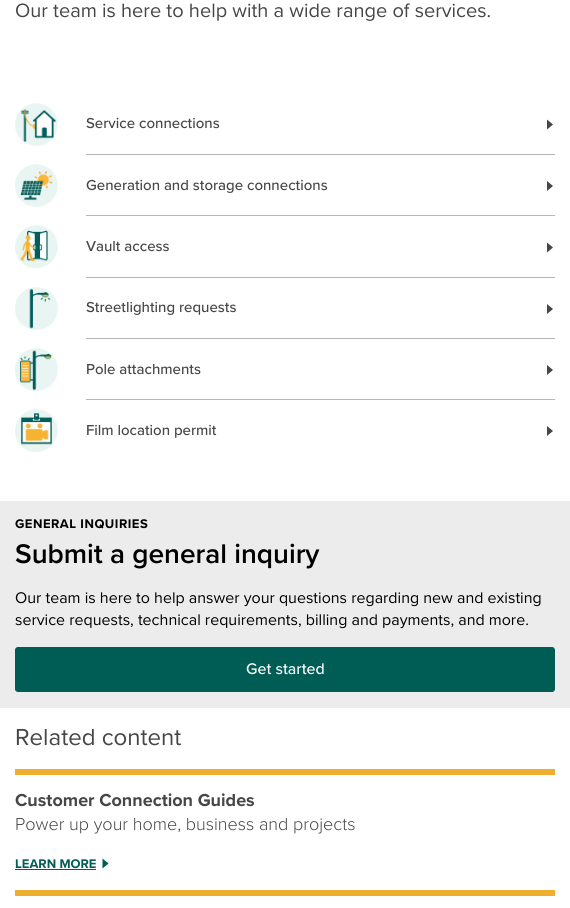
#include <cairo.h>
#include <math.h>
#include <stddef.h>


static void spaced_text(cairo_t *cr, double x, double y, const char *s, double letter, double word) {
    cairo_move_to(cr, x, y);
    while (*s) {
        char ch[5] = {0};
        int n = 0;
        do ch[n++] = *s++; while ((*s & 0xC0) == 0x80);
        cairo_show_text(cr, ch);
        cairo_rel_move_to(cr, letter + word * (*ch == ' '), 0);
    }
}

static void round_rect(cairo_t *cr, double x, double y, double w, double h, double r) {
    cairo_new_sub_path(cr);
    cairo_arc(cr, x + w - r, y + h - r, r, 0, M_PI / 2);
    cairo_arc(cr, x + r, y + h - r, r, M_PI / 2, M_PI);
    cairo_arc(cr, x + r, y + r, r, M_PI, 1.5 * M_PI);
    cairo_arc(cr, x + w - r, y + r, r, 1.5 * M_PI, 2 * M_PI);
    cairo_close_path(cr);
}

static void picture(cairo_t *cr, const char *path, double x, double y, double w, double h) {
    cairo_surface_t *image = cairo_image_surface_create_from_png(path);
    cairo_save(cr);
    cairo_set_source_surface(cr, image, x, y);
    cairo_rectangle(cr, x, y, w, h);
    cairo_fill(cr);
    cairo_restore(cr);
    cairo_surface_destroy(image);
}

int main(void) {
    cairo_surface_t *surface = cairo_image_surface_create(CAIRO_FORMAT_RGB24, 570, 908);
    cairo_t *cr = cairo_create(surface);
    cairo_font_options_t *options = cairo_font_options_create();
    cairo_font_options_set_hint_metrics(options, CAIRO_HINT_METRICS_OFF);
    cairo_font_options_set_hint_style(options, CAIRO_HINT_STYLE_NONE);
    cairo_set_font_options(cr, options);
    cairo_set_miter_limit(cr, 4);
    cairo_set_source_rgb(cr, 1, 1, 1);
    cairo_paint(cr);
    cairo_select_font_face(cr, "Proxima Nova", CAIRO_FONT_SLANT_NORMAL, CAIRO_FONT_WEIGHT_NORMAL);
    cairo_set_font_size(cr, 20);
    cairo_set_source_rgb(cr, 0.275, 0.275, 0.275);
    cairo_move_to(cr, 15, 17);
    cairo_show_text(cr, "Our team is here to help with a wide range of services.");
    cairo_set_source_rgb(cr, 0.91, 0.961, 0.949);
    cairo_new_path(cr);
    cairo_arc(cr, 35.5, 124.5, 20.5, 0, 2 * M_PI);
    cairo_fill(cr);
    picture(cr, "img1.png", 17, 103, 41, 43);
    cairo_set_source_rgb(cr, 0.718, 0.718, 0.718);
    cairo_rectangle(cr, 86, 154, 469, 1);
    cairo_fill(cr);
    cairo_select_font_face(cr, "Proxima Nova Medium", CAIRO_FONT_SLANT_NORMAL, CAIRO_FONT_WEIGHT_NORMAL);
    cairo_set_font_size(cr, 15);
    cairo_set_source_rgb(cr, 0.275, 0.275, 0.275);
    cairo_move_to(cr, 86, 128);
    cairo_show_text(cr, "Service connections");
    cairo_new_path(cr);
    cairo_move_to(cr, 547, 129.5);
    cairo_line_to(cr, 547, 119.5);
    cairo_line_to(cr, 553, 124.5);
    cairo_close_path(cr);
    cairo_fill(cr);
    cairo_set_source_rgb(cr, 0.91, 0.961, 0.949);
    cairo_arc(cr, 35.5, 185.5, 20.5, 0, 2 * M_PI);
    cairo_fill(cr);
    picture(cr, "img2.png", 16, 164, 42, 43);
    cairo_set_source_rgb(cr, 0.718, 0.718, 0.718);
    cairo_rectangle(cr, 86, 215, 469, 1);
    cairo_fill(cr);
    cairo_set_source_rgb(cr, 0.275, 0.275, 0.275);
    cairo_move_to(cr, 86, 190);
    cairo_show_text(cr, "Generation and storage connections");
    cairo_new_path(cr);
    cairo_move_to(cr, 547, 191);
    cairo_line_to(cr, 547, 181);
    cairo_line_to(cr, 553, 186);
    cairo_close_path(cr);
    cairo_fill(cr);
    cairo_set_source_rgb(cr, 0.91, 0.961, 0.949);
    cairo_arc(cr, 35.5, 247.5, 20.5, 0, 2 * M_PI);
    cairo_fill(cr);
    picture(cr, "img3.png", 15, 225, 43, 43);
    cairo_set_source_rgb(cr, 0.718, 0.718, 0.718);
    cairo_rectangle(cr, 86, 277, 469, 1);
    cairo_fill(cr);
    cairo_set_source_rgb(cr, 0.275, 0.275, 0.275);
    cairo_move_to(cr, 86, 251);
    cairo_show_text(cr, "Vault access");
    cairo_new_path(cr);
    cairo_move_to(cr, 547, 252.5);
    cairo_line_to(cr, 547, 242.5);
    cairo_line_to(cr, 553, 247.5);
    cairo_close_path(cr);
    cairo_fill(cr);
    cairo_set_source_rgb(cr, 0.91, 0.961, 0.949);
    cairo_arc(cr, 35.5, 308.5, 20.5, 0, 2 * M_PI);
    cairo_fill(cr);
    picture(cr, "img4.png", 16, 287, 42, 43);
    cairo_set_source_rgb(cr, 0.718, 0.718, 0.718);
    cairo_rectangle(cr, 86, 338, 469, 1);
    cairo_fill(cr);
    cairo_set_source_rgb(cr, 0.275, 0.275, 0.275);
    cairo_move_to(cr, 86, 312);
    cairo_show_text(cr, "Streetlighting requests");
    cairo_new_path(cr);
    cairo_move_to(cr, 547, 314);
    cairo_line_to(cr, 547, 304);
    cairo_line_to(cr, 553, 309);
    cairo_close_path(cr);
    cairo_fill(cr);
    cairo_set_source_rgb(cr, 0.91, 0.961, 0.949);
    cairo_arc(cr, 35.5, 370.5, 20.5, 0, 2 * M_PI);
    cairo_fill(cr);
    picture(cr, "img5.png", 15, 348, 43, 43);
    cairo_set_source_rgb(cr, 0.718, 0.718, 0.718);
    cairo_rectangle(cr, 86, 399, 469, 1);
    cairo_fill(cr);
    cairo_set_source_rgb(cr, 0.275, 0.275, 0.275);
    cairo_move_to(cr, 86, 374);
    cairo_show_text(cr, "Pole attachments");
    cairo_new_path(cr);
    cairo_move_to(cr, 547, 375);
    cairo_line_to(cr, 547, 365);
    cairo_line_to(cr, 553, 370);
    cairo_close_path(cr);
    cairo_fill(cr);
    cairo_set_source_rgb(cr, 0.91, 0.961, 0.949);
    cairo_arc(cr, 35.5, 431.5, 20.5, 0, 2 * M_PI);
    cairo_fill(cr);
    picture(cr, "img6.png", 15, 409, 43, 43);
    cairo_set_source_rgb(cr, 0.275, 0.275, 0.275);
    cairo_move_to(cr, 86, 435);
    cairo_show_text(cr, "Film location permit");
    cairo_new_path(cr);
    cairo_move_to(cr, 547, 436);
    cairo_line_to(cr, 547, 426);
    cairo_line_to(cr, 553, 431);
    cairo_close_path(cr);
    cairo_fill(cr);
    cairo_set_source_rgb(cr, 0.922, 0.922, 0.922);
    cairo_rectangle(cr, 0, 501, 570, 207);
    cairo_fill(cr);
    cairo_select_font_face(cr, "Proxima Nova", CAIRO_FONT_SLANT_NORMAL, CAIRO_FONT_WEIGHT_BOLD);
    cairo_set_font_size(cr, 13);
    cairo_set_source_rgb(cr, 0, 0, 0);
    spaced_text(cr, 15, 528, "GENERAL INQUIRIES", 0.5, 0);
    cairo_select_font_face(cr, "Proxima Nova SemiBold", CAIRO_FONT_SLANT_NORMAL, CAIRO_FONT_WEIGHT_NORMAL);
    cairo_set_font_size(cr, 28);
    cairo_move_to(cr, 15, 563);
    cairo_show_text(cr, "Submit a general inquiry");
    cairo_select_font_face(cr, "Proxima Nova", CAIRO_FONT_SLANT_NORMAL, CAIRO_FONT_WEIGHT_NORMAL);
    cairo_set_font_size(cr, 16);
    cairo_move_to(cr, 15, 603);
    cairo_show_text(cr, "Our team is here to help answer your questions regarding new and existing");
    cairo_move_to(cr, 15, 625);
    cairo_show_text(cr, "service requests, technical requirements, billing and payments, and more.");
    cairo_set_source_rgb(cr, 0, 0.365, 0.333);
    round_rect(cr, 15.5, 647.5, 539, 44, 2.5);
    cairo_fill_preserve(cr);
    cairo_set_line_width(cr, 1);
    cairo_stroke(cr);
    cairo_select_font_face(cr, "Proxima Nova Medium", CAIRO_FONT_SLANT_NORMAL, CAIRO_FONT_WEIGHT_NORMAL);
    cairo_set_source_rgb(cr, 1, 1, 1);
    cairo_move_to(cr, 246, 674);
    cairo_show_text(cr, "Get started");
    cairo_select_font_face(cr, "Proxima Nova", CAIRO_FONT_SLANT_NORMAL, CAIRO_FONT_WEIGHT_NORMAL);
    cairo_set_font_size(cr, 24);
    cairo_set_source_rgb(cr, 0.275, 0.275, 0.275);
    cairo_move_to(cr, 15, 745);
    cairo_show_text(cr, "Related content");
    cairo_set_source_rgb(cr, 0.933, 0.686, 0.188);
    cairo_rectangle(cr, 15, 769, 540, 6);
    cairo_fill(cr);
    cairo_select_font_face(cr, "Proxima Nova", CAIRO_FONT_SLANT_NORMAL, CAIRO_FONT_WEIGHT_BOLD);
    cairo_set_font_size(cr, 18);
    cairo_set_source_rgb(cr, 0.275, 0.275, 0.275);
    cairo_move_to(cr, 15, 806);
    cairo_show_text(cr, "Customer Connection Guides");
    cairo_select_font_face(cr, "Proxima Nova Light", CAIRO_FONT_SLANT_NORMAL, CAIRO_FONT_WEIGHT_NORMAL);
    cairo_move_to(cr, 15, 830);
    cairo_show_text(cr, "Power up your home, business and projects");
    cairo_select_font_face(cr, "Proxima Nova", CAIRO_FONT_SLANT_NORMAL, CAIRO_FONT_WEIGHT_BOLD);
    cairo_set_font_size(cr, 13);
    cairo_set_source_rgb(cr, 0, 0.365, 0.333);
    cairo_move_to(cr, 15, 868);
    cairo_show_text(cr, "LEARN MORE");
    cairo_rectangle(cr, 15, 869, 81, 1);
    cairo_fill(cr);
    cairo_new_path(cr);
    cairo_move_to(cr, 102.5, 868.5);
    cairo_line_to(cr, 102.5, 858.5);
    cairo_line_to(cr, 108.5, 863.5);
    cairo_close_path(cr);
    cairo_fill(cr);
    cairo_set_source_rgb(cr, 0.933, 0.686, 0.188);
    cairo_rectangle(cr, 15, 890, 540, 6);
    cairo_fill(cr);
    cairo_surface_write_to_png(surface, "page.png");
    cairo_font_options_destroy(options);
    cairo_destroy(cr);
    cairo_surface_destroy(surface);
    return 0;
}
